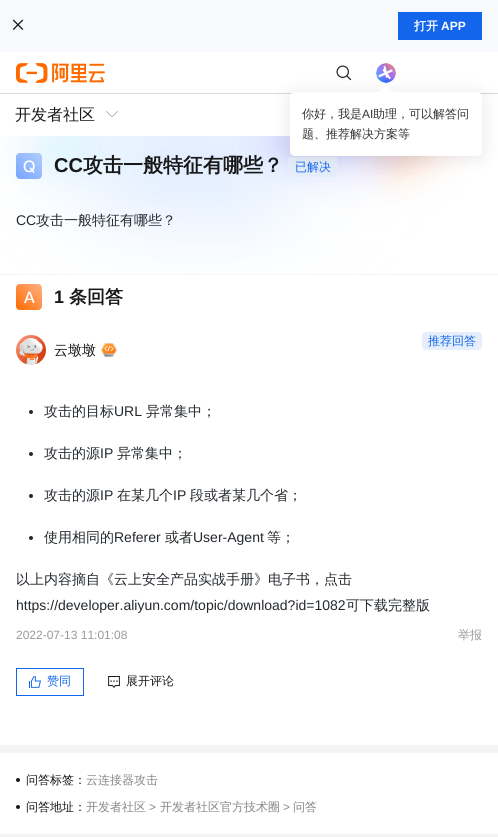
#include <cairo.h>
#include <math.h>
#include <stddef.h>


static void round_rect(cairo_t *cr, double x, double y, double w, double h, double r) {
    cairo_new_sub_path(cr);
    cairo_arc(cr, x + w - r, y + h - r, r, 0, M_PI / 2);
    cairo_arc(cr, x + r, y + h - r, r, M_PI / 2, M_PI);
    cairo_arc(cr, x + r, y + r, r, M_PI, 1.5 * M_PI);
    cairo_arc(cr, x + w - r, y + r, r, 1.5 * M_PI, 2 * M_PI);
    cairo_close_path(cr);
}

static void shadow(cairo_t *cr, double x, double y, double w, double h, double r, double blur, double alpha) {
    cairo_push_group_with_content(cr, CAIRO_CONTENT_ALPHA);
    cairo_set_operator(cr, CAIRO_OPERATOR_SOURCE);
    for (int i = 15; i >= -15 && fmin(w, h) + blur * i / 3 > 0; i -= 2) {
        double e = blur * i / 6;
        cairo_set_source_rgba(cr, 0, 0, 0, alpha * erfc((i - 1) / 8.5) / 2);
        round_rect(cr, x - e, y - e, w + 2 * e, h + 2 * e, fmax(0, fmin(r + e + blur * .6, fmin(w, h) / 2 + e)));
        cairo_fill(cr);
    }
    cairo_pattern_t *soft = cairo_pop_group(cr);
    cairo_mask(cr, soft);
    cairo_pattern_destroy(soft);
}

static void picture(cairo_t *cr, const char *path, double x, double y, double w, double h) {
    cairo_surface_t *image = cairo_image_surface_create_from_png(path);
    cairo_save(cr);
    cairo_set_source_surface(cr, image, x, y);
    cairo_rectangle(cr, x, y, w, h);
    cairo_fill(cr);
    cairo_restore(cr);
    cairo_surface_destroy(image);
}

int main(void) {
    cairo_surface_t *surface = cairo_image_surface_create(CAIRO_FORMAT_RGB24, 498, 837);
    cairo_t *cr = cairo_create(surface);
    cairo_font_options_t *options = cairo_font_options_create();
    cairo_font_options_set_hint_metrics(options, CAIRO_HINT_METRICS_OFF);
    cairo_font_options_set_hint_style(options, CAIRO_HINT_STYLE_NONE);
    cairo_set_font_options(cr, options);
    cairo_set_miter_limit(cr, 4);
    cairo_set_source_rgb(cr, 1, 1, 1);
    cairo_paint(cr);
    cairo_select_font_face(cr, "WenQuanYi Zen Hei Medium", CAIRO_FONT_SLANT_NORMAL, CAIRO_FONT_WEIGHT_NORMAL);
    cairo_set_font_size(cr, 16);
    cairo_set_source_rgb(cr, 0.094, 0.094, 0.094);
    cairo_move_to(cr, 15, 120);
    cairo_show_text(cr, "开发者社区");
    picture(cr, "img1.png", 106, 111, 12, 6);
    cairo_set_source_rgb(cr, 0.969, 0.976, 0.988);
    cairo_rectangle(cr, 0, 0, 498, 52);
    cairo_fill(cr);
    picture(cr, "img2.png", 12, 19, 12, 11);
    cairo_set_source_rgb(cr, 0.075, 0.4, 0.925);
    cairo_rectangle(cr, 398, 12, 84, 28);
    cairo_fill(cr);
    cairo_select_font_face(cr, "WenQuanYi Zen Hei", CAIRO_FONT_SLANT_NORMAL, CAIRO_FONT_WEIGHT_BOLD);
    cairo_set_font_size(cr, 12);
    cairo_set_source_rgb(cr, 1, 1, 1);
    cairo_move_to(cr, 414, 30);
    cairo_show_text(cr, "打开");
    cairo_select_font_face(cr, "Liberation Sans", CAIRO_FONT_SLANT_NORMAL, CAIRO_FONT_WEIGHT_BOLD);
    cairo_move_to(cr, 441, 30);
    cairo_show_text(cr, "APP");
    cairo_set_source_rgb(cr, 0.843, 0.847, 0.851);
    cairo_rectangle(cr, 0, 93, 498, 1);
    cairo_fill(cr);
    picture(cr, "img3.png", 16, 63, 89, 20);
    picture(cr, "img4.png", 336, 65, 16, 16);
    picture(cr, "img5.png", 376, 63, 20, 20);
    picture(cr, "img6.png", 378, 65, 15, 15);
    picture(cr, "img7.png", 0, 136, 466, 137);
    cairo_set_source_rgb(cr, 0.902, 0.933, 0.988);
    round_rect(cr, 288, 157, 50, 20, 4);
    cairo_fill(cr);
    cairo_set_source_rgb(cr, 0, 0, 0);
    shadow(cr, 290, 94, 192, 64, 5, 9, 0.1);
    cairo_set_source_rgb(cr, 1, 1, 1);
    round_rect(cr, 290, 92, 192, 64, 5);
    cairo_fill(cr);
    cairo_new_path(cr);
    cairo_move_to(cr, 386, 85);
    cairo_line_to(cr, 393, 92);
    cairo_line_to(cr, 386, 99);
    cairo_line_to(cr, 379, 92);
    cairo_close_path(cr);
    cairo_fill(cr);
    cairo_select_font_face(cr, "WenQuanYi Zen Hei Medium", CAIRO_FONT_SLANT_NORMAL, CAIRO_FONT_WEIGHT_NORMAL);
    cairo_set_source_rgb(cr, 0.2, 0.2, 0.2);
    cairo_move_to(cr, 302, 118);
    cairo_show_text(cr, "你好，我是");
    cairo_select_font_face(cr, "Liberation Sans", CAIRO_FONT_SLANT_NORMAL, CAIRO_FONT_WEIGHT_NORMAL);
    cairo_move_to(cr, 362, 118);
    cairo_show_text(cr, "AI");
    cairo_select_font_face(cr, "WenQuanYi Zen Hei Medium", CAIRO_FONT_SLANT_NORMAL, CAIRO_FONT_WEIGHT_NORMAL);
    cairo_move_to(cr, 373, 118);
    cairo_show_text(cr, "助理，可以解答问");
    cairo_move_to(cr, 302, 138);
    cairo_show_text(cr, "题、推荐解决方案等");
    picture(cr, "img8.png", 16, 153, 26, 26);
    cairo_select_font_face(cr, "Liberation Sans", CAIRO_FONT_SLANT_NORMAL, CAIRO_FONT_WEIGHT_BOLD);
    cairo_set_font_size(cr, 20);
    cairo_set_source_rgb(cr, 0.094, 0.094, 0.094);
    cairo_move_to(cr, 54, 172);
    cairo_show_text(cr, "CC");
    cairo_select_font_face(cr, "WenQuanYi Zen Hei", CAIRO_FONT_SLANT_NORMAL, CAIRO_FONT_WEIGHT_BOLD);
    cairo_move_to(cr, 83, 172);
    cairo_show_text(cr, "攻击一般特征有哪些？");
    cairo_select_font_face(cr, "WenQuanYi Zen Hei Medium", CAIRO_FONT_SLANT_NORMAL, CAIRO_FONT_WEIGHT_NORMAL);
    cairo_set_font_size(cr, 12);
    cairo_set_source_rgb(cr, 0.075, 0.4, 0.925);
    cairo_move_to(cr, 295, 171);
    cairo_show_text(cr, "已解决");
    cairo_select_font_face(cr, "Liberation Sans", CAIRO_FONT_SLANT_NORMAL, CAIRO_FONT_WEIGHT_NORMAL);
    cairo_set_font_size(cr, 14);
    cairo_set_source_rgb(cr, 0.141, 0.161, 0.18);
    cairo_move_to(cr, 16, 225);
    cairo_show_text(cr, "CC");
    cairo_select_font_face(cr, "WenQuanYi Zen Hei Medium", CAIRO_FONT_SLANT_NORMAL, CAIRO_FONT_WEIGHT_NORMAL);
    cairo_move_to(cr, 36, 225);
    cairo_show_text(cr, "攻击一般特征有哪些？");
    cairo_set_source_rgb(cr, 0.957, 0.957, 0.957);
    cairo_rectangle(cr, 0, 274, 498, 1);
    cairo_fill(cr);
    picture(cr, "img9.png", 16, 284, 26, 26);
    cairo_select_font_face(cr, "Liberation Sans", CAIRO_FONT_SLANT_NORMAL, CAIRO_FONT_WEIGHT_BOLD);
    cairo_set_font_size(cr, 18);
    cairo_set_source_rgb(cr, 0.094, 0.094, 0.094);
    cairo_move_to(cr, 54, 303);
    cairo_show_text(cr, "1");
    cairo_select_font_face(cr, "WenQuanYi Zen Hei", CAIRO_FONT_SLANT_NORMAL, CAIRO_FONT_WEIGHT_BOLD);
    cairo_move_to(cr, 69, 303);
    cairo_show_text(cr, "条回答");
    cairo_set_source_rgb(cr, 0.902, 0.933, 0.988);
    round_rect(cr, 422, 332, 60, 18, 4);
    cairo_fill(cr);
    cairo_select_font_face(cr, "WenQuanYi Zen Hei Medium", CAIRO_FONT_SLANT_NORMAL, CAIRO_FONT_WEIGHT_NORMAL);
    cairo_set_font_size(cr, 12);
    cairo_set_source_rgb(cr, 0.075, 0.4, 0.925);
    cairo_move_to(cr, 428, 345);
    cairo_show_text(cr, "推荐回答");
    cairo_set_font_size(cr, 14);
    cairo_set_source_rgb(cr, 0.094, 0.094, 0.094);
    cairo_move_to(cr, 54, 355);
    cairo_show_text(cr, "云墩墩");
    picture(cr, "img10.png", 101, 343, 16, 14);
    cairo_set_source_rgb(cr, 0.141, 0.161, 0.18);
    cairo_arc(cr, 31, 412, 2, 0, 2 * M_PI);
    cairo_fill(cr);
    cairo_move_to(cr, 44, 416);
    cairo_show_text(cr, "攻击的目标");
    cairo_select_font_face(cr, "Liberation Sans", CAIRO_FONT_SLANT_NORMAL, CAIRO_FONT_WEIGHT_NORMAL);
    cairo_move_to(cr, 114, 416);
    cairo_show_text(cr, "URL");
    cairo_select_font_face(cr, "WenQuanYi Zen Hei Medium", CAIRO_FONT_SLANT_NORMAL, CAIRO_FONT_WEIGHT_NORMAL);
    cairo_move_to(cr, 146, 416);
    cairo_show_text(cr, "异常集中；");
    cairo_new_path(cr);
    cairo_arc(cr, 31, 454, 2, 0, 2 * M_PI);
    cairo_fill(cr);
    cairo_move_to(cr, 44, 458);
    cairo_show_text(cr, "攻击的源");
    cairo_select_font_face(cr, "Liberation Sans", CAIRO_FONT_SLANT_NORMAL, CAIRO_FONT_WEIGHT_NORMAL);
    cairo_move_to(cr, 100, 458);
    cairo_show_text(cr, "IP");
    cairo_select_font_face(cr, "WenQuanYi Zen Hei Medium", CAIRO_FONT_SLANT_NORMAL, CAIRO_FONT_WEIGHT_NORMAL);
    cairo_move_to(cr, 117, 458);
    cairo_show_text(cr, "异常集中；");
    cairo_new_path(cr);
    cairo_arc(cr, 31, 496, 2, 0, 2 * M_PI);
    cairo_fill(cr);
    cairo_move_to(cr, 44, 500);
    cairo_show_text(cr, "攻击的源");
    cairo_select_font_face(cr, "Liberation Sans", CAIRO_FONT_SLANT_NORMAL, CAIRO_FONT_WEIGHT_NORMAL);
    cairo_move_to(cr, 100, 500);
    cairo_show_text(cr, "IP");
    cairo_select_font_face(cr, "WenQuanYi Zen Hei Medium", CAIRO_FONT_SLANT_NORMAL, CAIRO_FONT_WEIGHT_NORMAL);
    cairo_move_to(cr, 117, 500);
    cairo_show_text(cr, "在某几个");
    cairo_select_font_face(cr, "Liberation Sans", CAIRO_FONT_SLANT_NORMAL, CAIRO_FONT_WEIGHT_NORMAL);
    cairo_move_to(cr, 173, 500);
    cairo_show_text(cr, "IP");
    cairo_select_font_face(cr, "WenQuanYi Zen Hei Medium", CAIRO_FONT_SLANT_NORMAL, CAIRO_FONT_WEIGHT_NORMAL);
    cairo_move_to(cr, 190, 500);
    cairo_show_text(cr, "段或者某几个省；");
    cairo_new_path(cr);
    cairo_arc(cr, 31, 538, 2, 0, 2 * M_PI);
    cairo_fill(cr);
    cairo_move_to(cr, 44, 542);
    cairo_show_text(cr, "使用相同的");
    cairo_select_font_face(cr, "Liberation Sans", CAIRO_FONT_SLANT_NORMAL, CAIRO_FONT_WEIGHT_NORMAL);
    cairo_move_to(cr, 114, 542);
    cairo_show_text(cr, "Referer");
    cairo_select_font_face(cr, "WenQuanYi Zen Hei Medium", CAIRO_FONT_SLANT_NORMAL, CAIRO_FONT_WEIGHT_NORMAL);
    cairo_move_to(cr, 165, 542);
    cairo_show_text(cr, "或者");
    cairo_select_font_face(cr, "Liberation Sans", CAIRO_FONT_SLANT_NORMAL, CAIRO_FONT_WEIGHT_NORMAL);
    cairo_move_to(cr, 193, 542);
    cairo_show_text(cr, "User-Agent");
    cairo_select_font_face(cr, "WenQuanYi Zen Hei Medium", CAIRO_FONT_SLANT_NORMAL, CAIRO_FONT_WEIGHT_NORMAL);
    cairo_move_to(cr, 267, 542);
    cairo_show_text(cr, "等；");
    cairo_move_to(cr, 16, 584);
    cairo_show_text(cr, "以上内容摘自《云上安全产品实战手册》电子书，点击");
    cairo_select_font_face(cr, "Liberation Sans", CAIRO_FONT_SLANT_NORMAL, CAIRO_FONT_WEIGHT_NORMAL);
    cairo_move_to(cr, 16, 610);
    cairo_show_text(cr, "https://developer.aliyun.com/topic/download?id=1082");
    cairo_select_font_face(cr, "WenQuanYi Zen Hei Medium", CAIRO_FONT_SLANT_NORMAL, CAIRO_FONT_WEIGHT_NORMAL);
    cairo_move_to(cr, 346, 610);
    cairo_show_text(cr, "可下载完整版");
    cairo_select_font_face(cr, "Liberation Sans", CAIRO_FONT_SLANT_NORMAL, CAIRO_FONT_WEIGHT_NORMAL);
    cairo_set_font_size(cr, 12);
    cairo_set_source_rgb(cr, 0.6, 0.6, 0.6);
    cairo_move_to(cr, 16, 639);
    cairo_show_text(cr, "2022-07-13 11:01:08");
    cairo_select_font_face(cr, "WenQuanYi Zen Hei Medium", CAIRO_FONT_SLANT_NORMAL, CAIRO_FONT_WEIGHT_NORMAL);
    cairo_move_to(cr, 458, 639);
    cairo_show_text(cr, "举报");
    cairo_rectangle(cr, 16.5, 668.5, 67, 27);
    cairo_set_source_rgb(cr, 0.075, 0.4, 0.925);
    cairo_set_line_width(cr, 1);
    cairo_stroke(cr);
    picture(cr, "img11.png", 29, 676, 12, 12);
    cairo_move_to(cr, 47, 685);
    cairo_show_text(cr, "赞同");
    picture(cr, "img12.png", 108, 676, 12, 12);
    cairo_set_source_rgb(cr, 0.094, 0.094, 0.094);
    cairo_move_to(cr, 126, 685);
    cairo_show_text(cr, "展开评论");
    picture(cr, "img13.png", 16, 335, 30, 30);
    cairo_set_source_rgb(cr, 0.957, 0.957, 0.957);
    cairo_rectangle(cr, 0, 745, 498, 8);
    cairo_fill(cr);
    cairo_set_source_rgb(cr, 0.094, 0.094, 0.094);
    cairo_arc(cr, 18, 780, 2, 0, 2 * M_PI);
    cairo_fill(cr);
    cairo_move_to(cr, 26, 784);
    cairo_show_text(cr, "问答标签：");
    cairo_set_source_rgb(cr, 0.525, 0.525, 0.525);
    cairo_move_to(cr, 86, 784);
    cairo_show_text(cr, "云连接器攻击");
    cairo_set_source_rgb(cr, 0.094, 0.094, 0.094);
    cairo_new_path(cr);
    cairo_arc(cr, 18, 807, 2, 0, 2 * M_PI);
    cairo_fill(cr);
    cairo_move_to(cr, 26, 811);
    cairo_show_text(cr, "问答地址：");
    cairo_set_source_rgb(cr, 0.525, 0.525, 0.525);
    cairo_move_to(cr, 86, 811);
    cairo_show_text(cr, "开发者社区");
    cairo_select_font_face(cr, "Liberation Sans", CAIRO_FONT_SLANT_NORMAL, CAIRO_FONT_WEIGHT_NORMAL);
    cairo_move_to(cr, 149, 811);
    cairo_show_text(cr, ">");
    cairo_select_font_face(cr, "WenQuanYi Zen Hei Medium", CAIRO_FONT_SLANT_NORMAL, CAIRO_FONT_WEIGHT_NORMAL);
    cairo_move_to(cr, 160, 811);
    cairo_show_text(cr, "开发者社区官方技术圈");
    cairo_select_font_face(cr, "Liberation Sans", CAIRO_FONT_SLANT_NORMAL, CAIRO_FONT_WEIGHT_NORMAL);
    cairo_move_to(cr, 283, 811);
    cairo_show_text(cr, ">");
    cairo_select_font_face(cr, "WenQuanYi Zen Hei Medium", CAIRO_FONT_SLANT_NORMAL, CAIRO_FONT_WEIGHT_NORMAL);
    cairo_move_to(cr, 293, 811);
    cairo_show_text(cr, "问答");
    cairo_set_source_rgb(cr, 0.957, 0.957, 0.957);
    cairo_rectangle(cr, 0, 834, 498, 3);
    cairo_fill(cr);
    cairo_surface_write_to_png(surface, "page.png");
    cairo_font_options_destroy(options);
    cairo_destroy(cr);
    cairo_surface_destroy(surface);
    return 0;
}
